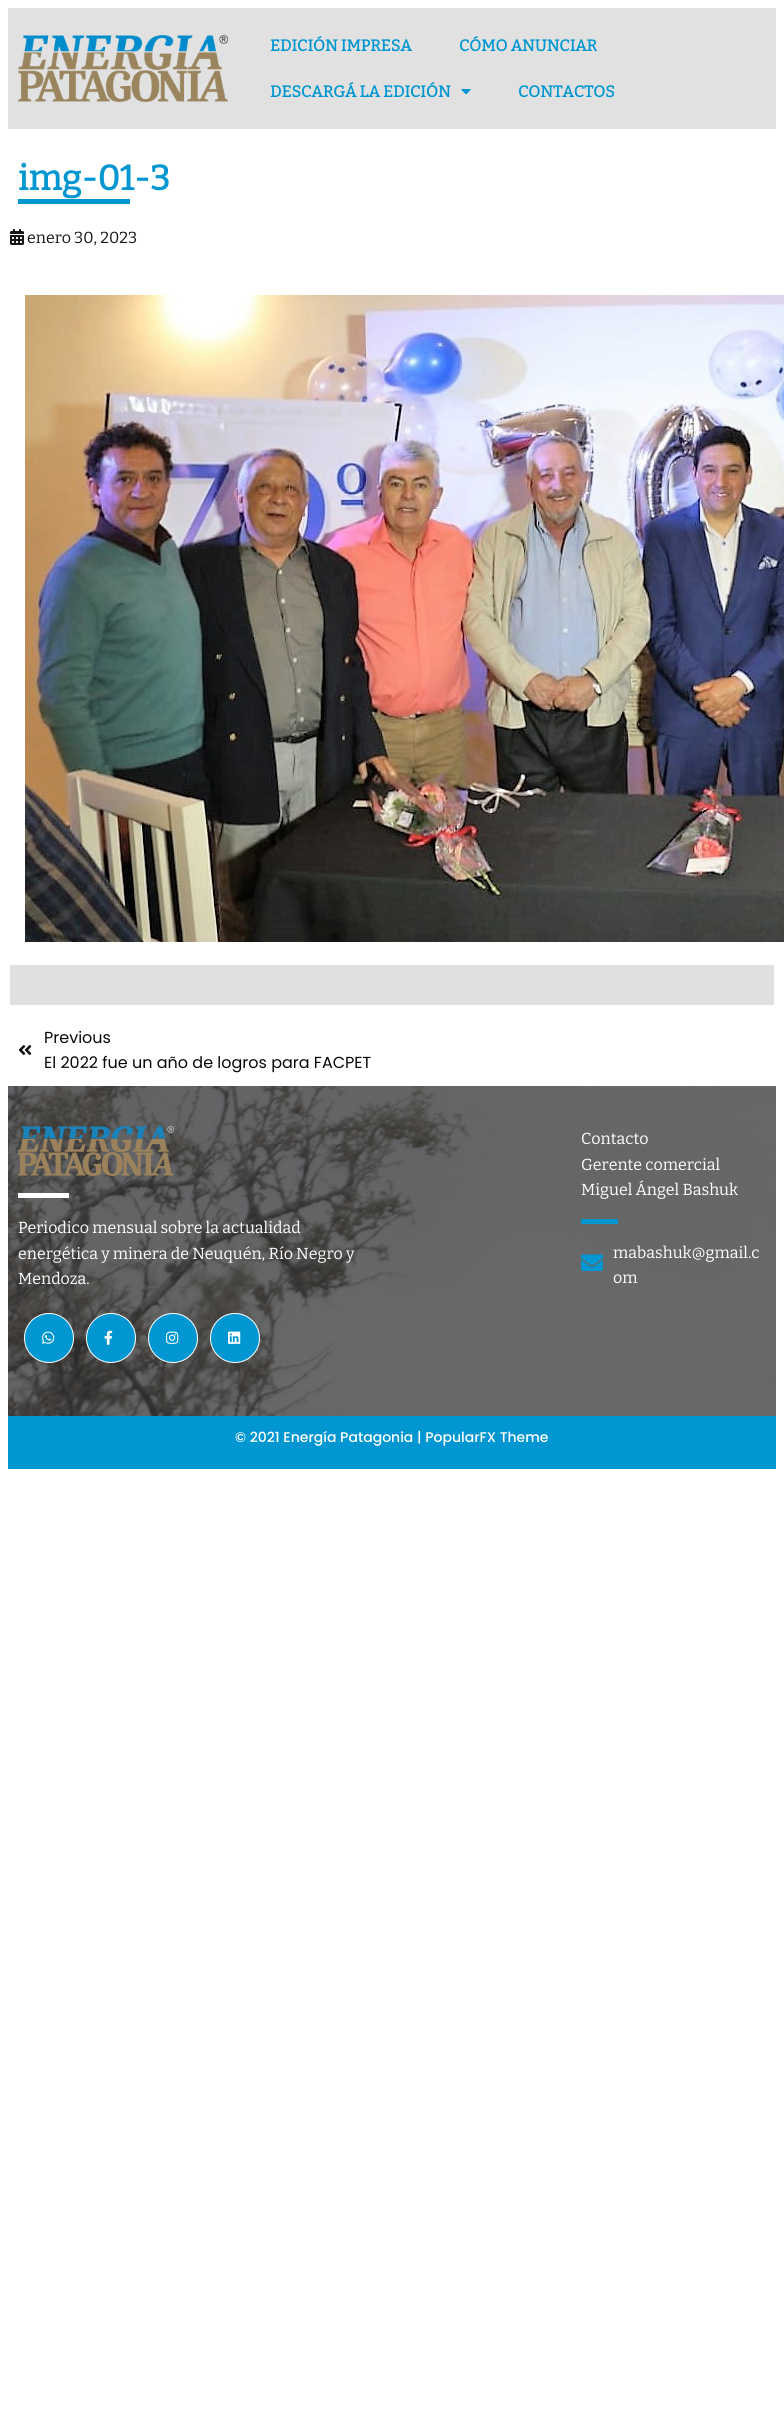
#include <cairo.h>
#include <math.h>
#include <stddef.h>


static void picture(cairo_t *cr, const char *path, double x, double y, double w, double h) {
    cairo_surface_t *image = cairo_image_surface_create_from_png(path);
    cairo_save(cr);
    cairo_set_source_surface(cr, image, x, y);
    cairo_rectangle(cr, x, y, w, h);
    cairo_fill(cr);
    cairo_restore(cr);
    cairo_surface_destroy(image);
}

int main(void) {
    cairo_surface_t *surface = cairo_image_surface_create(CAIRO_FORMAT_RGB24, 784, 2421);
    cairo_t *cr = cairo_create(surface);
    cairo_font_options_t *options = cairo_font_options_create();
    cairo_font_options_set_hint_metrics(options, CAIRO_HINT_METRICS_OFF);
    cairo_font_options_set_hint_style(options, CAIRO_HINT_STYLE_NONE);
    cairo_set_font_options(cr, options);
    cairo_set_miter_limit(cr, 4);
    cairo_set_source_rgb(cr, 1, 1, 1);
    cairo_paint(cr);
    cairo_set_source_rgb(cr, 0.882, 0.882, 0.882);
    cairo_rectangle(cr, 8, 8, 768, 121);
    cairo_fill(cr);
    picture(cr, "img1.png", 18, 35, 210, 67);
    cairo_select_font_face(cr, "Bitter", CAIRO_FONT_SLANT_NORMAL, CAIRO_FONT_WEIGHT_BOLD);
    cairo_set_font_size(cr, 16);
    cairo_set_source_rgb(cr, 0, 0.588, 0.82);
    cairo_move_to(cr, 270, 51);
    cairo_show_text(cr, "EDICIÓN IMPRESA");
    cairo_move_to(cr, 459, 51);
    cairo_show_text(cr, "CÓMO ANUNCIAR");
    cairo_move_to(cr, 270, 97);
    cairo_show_text(cr, "DESCARGÁ LA EDICIÓN");
    picture(cr, "img2.png", 461, 89, 10, 6);
    cairo_move_to(cr, 518, 97);
    cairo_show_text(cr, "CONTACTOS");
    cairo_set_font_size(cr, 35);
    cairo_move_to(cr, 18, 190);
    cairo_show_text(cr, "img-01-3");
    cairo_rectangle(cr, 18, 199, 112, 5);
    cairo_fill(cr);
    picture(cr, "img3.png", 10, 229, 14, 16);
    cairo_select_font_face(cr, "Bitter Thin", CAIRO_FONT_SLANT_NORMAL, CAIRO_FONT_WEIGHT_NORMAL);
    cairo_set_font_size(cr, 16);
    cairo_set_source_rgb(cr, 0.098, 0.086, 0.086);
    cairo_move_to(cr, 27, 243);
    cairo_show_text(cr, "enero 30, 2023");
    picture(cr, "img4.png", 25, 295, 759, 647);
    cairo_set_source_rgb(cr, 0.878, 0.878, 0.882);
    cairo_rectangle(cr, 10, 965, 764, 40);
    cairo_fill(cr);
    picture(cr, "img5.png", 18, 1045, 14, 10);
    cairo_select_font_face(cr, "Poppins", CAIRO_FONT_SLANT_NORMAL, CAIRO_FONT_WEIGHT_NORMAL);
    cairo_set_source_rgb(cr, 0.035, 0.035, 0.035);
    cairo_move_to(cr, 44, 1043);
    cairo_show_text(cr, "Previous");
    cairo_move_to(cr, 44, 1068);
    cairo_show_text(cr, "El 2022 fue un año de logros para FACPET");
    picture(cr, "img6.png", 8, 1086, 768, 330);
    picture(cr, "img7.png", 18, 1126, 156, 50);
    cairo_set_source_rgb(cr, 1, 1, 1);
    cairo_rectangle(cr, 18, 1193, 51, 5);
    cairo_fill(cr);
    cairo_select_font_face(cr, "Bitter Thin", CAIRO_FONT_SLANT_NORMAL, CAIRO_FONT_WEIGHT_NORMAL);
    cairo_move_to(cr, 18, 1233);
    cairo_show_text(cr, "Periodico mensual sobre la actualidad");
    cairo_move_to(cr, 18, 1259);
    cairo_show_text(cr, "energética y minera de Neuquén, Río Negro y");
    cairo_move_to(cr, 18, 1284);
    cairo_show_text(cr, "Mendoza.");
    cairo_set_source_rgb(cr, 0, 0.588, 0.82);
    cairo_new_path(cr);
    cairo_arc(cr, 49, 1338, 24.5, 0, 2 * M_PI);
    cairo_fill_preserve(cr);
    cairo_set_source_rgb(cr, 1, 1, 1);
    cairo_set_line_width(cr, 1);
    cairo_stroke(cr);
    picture(cr, "img8.png", 42, 1331, 13, 13);
    cairo_set_source_rgb(cr, 0, 0.588, 0.82);
    cairo_arc(cr, 111, 1338, 24.5, 0, 2 * M_PI);
    cairo_fill_preserve(cr);
    cairo_set_source_rgb(cr, 1, 1, 1);
    cairo_stroke(cr);
    picture(cr, "img9.png", 104, 1330, 9, 15);
    cairo_set_source_rgb(cr, 0, 0.588, 0.82);
    cairo_arc(cr, 173, 1338, 24.5, 0, 2 * M_PI);
    cairo_fill_preserve(cr);
    cairo_set_source_rgb(cr, 1, 1, 1);
    cairo_stroke(cr);
    picture(cr, "img10.png", 166, 1331, 13, 13);
    cairo_set_source_rgb(cr, 0, 0.588, 0.82);
    cairo_arc(cr, 235, 1338, 24.5, 0, 2 * M_PI);
    cairo_fill_preserve(cr);
    cairo_set_source_rgb(cr, 1, 1, 1);
    cairo_stroke(cr);
    picture(cr, "img11.png", 228, 1331, 13, 13);
    cairo_move_to(cr, 581, 1144);
    cairo_show_text(cr, "Contacto");
    cairo_move_to(cr, 581, 1170);
    cairo_show_text(cr, "Gerente comercial");
    cairo_move_to(cr, 581, 1195);
    cairo_show_text(cr, "Miguel Ángel Bashuk");
    cairo_set_source_rgb(cr, 0, 0.588, 0.82);
    cairo_rectangle(cr, 581, 1219, 37, 5);
    cairo_fill(cr);
    picture(cr, "img12.png", 581, 1254, 22, 17);
    cairo_set_source_rgb(cr, 1, 1, 1);
    cairo_move_to(cr, 613, 1258);
    cairo_show_text(cr, "mabashuk@gmail.c");
    cairo_move_to(cr, 613, 1283);
    cairo_show_text(cr, "om");
    cairo_set_source_rgb(cr, 0, 0.588, 0.82);
    cairo_rectangle(cr, 8, 1416, 768, 53);
    cairo_fill(cr);
    cairo_select_font_face(cr, "Poppins Medium", CAIRO_FONT_SLANT_NORMAL, CAIRO_FONT_WEIGHT_NORMAL);
    cairo_set_font_size(cr, 14);
    cairo_set_source_rgb(cr, 1, 1, 1);
    cairo_move_to(cr, 235, 1442);
    cairo_show_text(cr, "© 2021 Energía Patagonia | PopularFX Theme");
    cairo_surface_write_to_png(surface, "page.png");
    cairo_font_options_destroy(options);
    cairo_destroy(cr);
    cairo_surface_destroy(surface);
    return 0;
}
